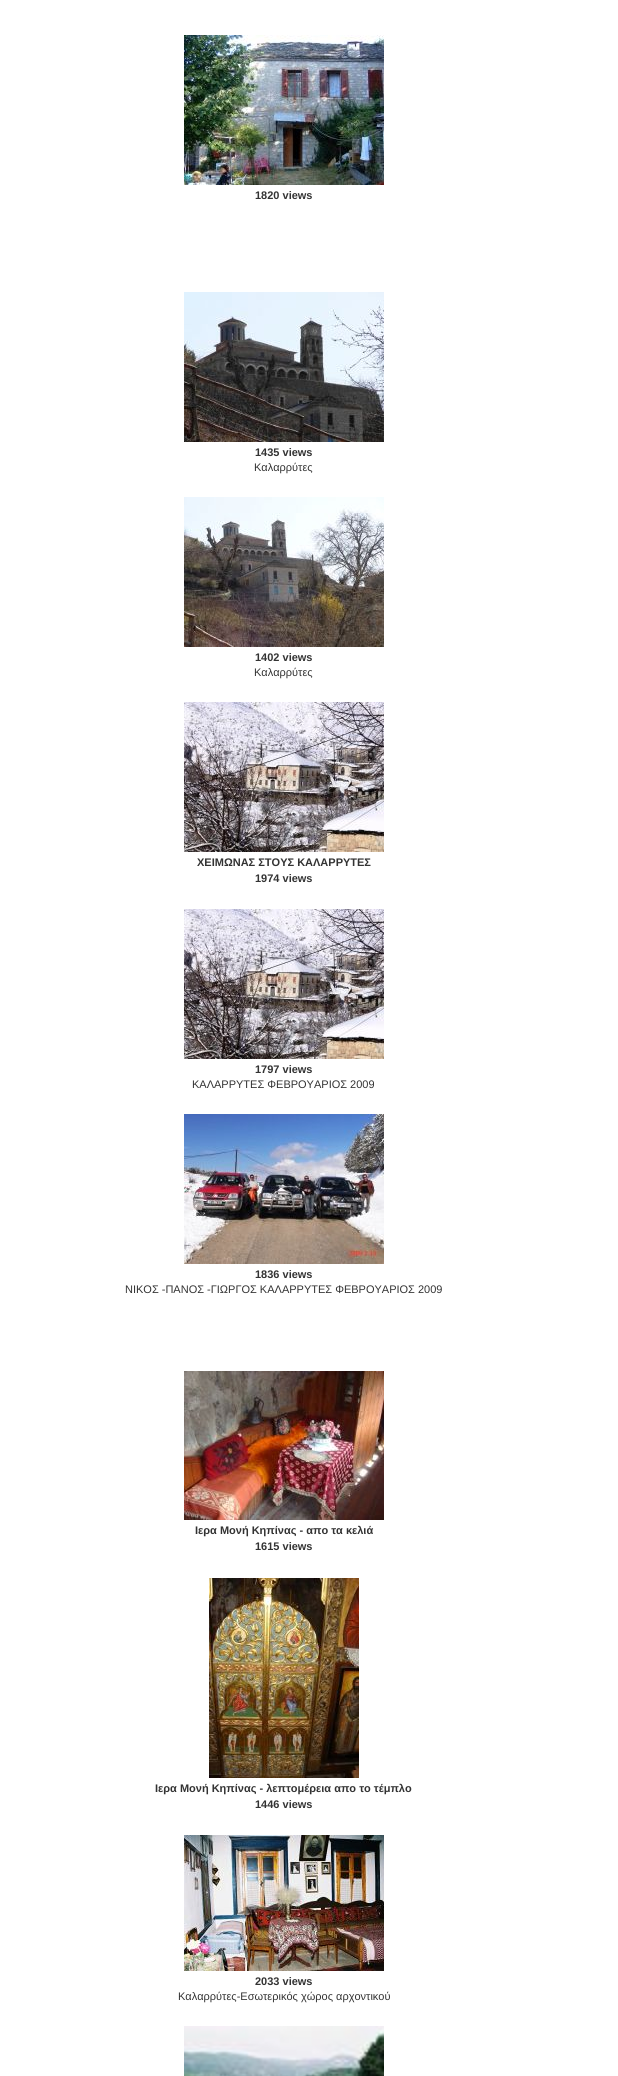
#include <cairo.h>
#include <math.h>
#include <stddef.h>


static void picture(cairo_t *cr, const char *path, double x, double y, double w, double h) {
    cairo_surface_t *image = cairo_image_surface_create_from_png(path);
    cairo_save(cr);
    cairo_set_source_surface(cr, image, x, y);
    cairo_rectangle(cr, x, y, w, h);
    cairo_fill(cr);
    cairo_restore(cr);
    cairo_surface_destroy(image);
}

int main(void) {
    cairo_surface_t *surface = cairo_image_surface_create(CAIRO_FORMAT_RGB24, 618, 2076);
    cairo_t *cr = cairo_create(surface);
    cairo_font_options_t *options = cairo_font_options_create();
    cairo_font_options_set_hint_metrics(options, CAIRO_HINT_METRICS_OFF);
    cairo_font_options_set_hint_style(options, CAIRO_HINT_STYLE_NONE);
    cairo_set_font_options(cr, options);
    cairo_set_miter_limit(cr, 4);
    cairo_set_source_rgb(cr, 1, 1, 1);
    cairo_paint(cr);
    picture(cr, "img1.png", 184, 35, 200, 150);
    cairo_select_font_face(cr, "Liberation Sans", CAIRO_FONT_SLANT_NORMAL, CAIRO_FONT_WEIGHT_BOLD);
    cairo_set_font_size(cr, 11);
    cairo_set_source_rgb(cr, 0.2, 0.2, 0.2);
    cairo_move_to(cr, 255, 199);
    cairo_show_text(cr, "1820 views");
    picture(cr, "img2.png", 184, 292, 200, 150);
    cairo_move_to(cr, 255, 456);
    cairo_show_text(cr, "1435 views");
    cairo_select_font_face(cr, "Liberation Sans", CAIRO_FONT_SLANT_NORMAL, CAIRO_FONT_WEIGHT_NORMAL);
    cairo_move_to(cr, 254, 471);
    cairo_show_text(cr, "Καλαρρύτες");
    picture(cr, "img3.png", 184, 497, 200, 150);
    cairo_select_font_face(cr, "Liberation Sans", CAIRO_FONT_SLANT_NORMAL, CAIRO_FONT_WEIGHT_BOLD);
    cairo_move_to(cr, 255, 661);
    cairo_show_text(cr, "1402 views");
    cairo_select_font_face(cr, "Liberation Sans", CAIRO_FONT_SLANT_NORMAL, CAIRO_FONT_WEIGHT_NORMAL);
    cairo_move_to(cr, 254, 676);
    cairo_show_text(cr, "Καλαρρύτες");
    picture(cr, "img4.png", 184, 702, 200, 150);
    cairo_select_font_face(cr, "Liberation Sans", CAIRO_FONT_SLANT_NORMAL, CAIRO_FONT_WEIGHT_BOLD);
    cairo_move_to(cr, 197, 866);
    cairo_show_text(cr, "ΧΕΙΜΩΝΑΣ ΣΤΟΥΣ ΚΑΛΑΡΡΥΤΕΣ");
    cairo_move_to(cr, 255, 882);
    cairo_show_text(cr, "1974 views");
    picture(cr, "img4.png", 184, 909, 200, 150);
    cairo_move_to(cr, 255, 1073);
    cairo_show_text(cr, "1797 views");
    cairo_select_font_face(cr, "Liberation Sans", CAIRO_FONT_SLANT_NORMAL, CAIRO_FONT_WEIGHT_NORMAL);
    cairo_move_to(cr, 192, 1088);
    cairo_show_text(cr, "ΚΑΛΑΡΡΥΤΕΣ ΦΕΒΡΟΥΑΡΙΟΣ 2009");
    picture(cr, "img5.png", 184, 1114, 200, 150);
    cairo_select_font_face(cr, "Liberation Sans", CAIRO_FONT_SLANT_NORMAL, CAIRO_FONT_WEIGHT_BOLD);
    cairo_move_to(cr, 255, 1278);
    cairo_show_text(cr, "1836 views");
    cairo_select_font_face(cr, "Liberation Sans", CAIRO_FONT_SLANT_NORMAL, CAIRO_FONT_WEIGHT_NORMAL);
    cairo_move_to(cr, 125, 1293);
    cairo_show_text(cr, "ΝΙΚΟΣ -ΠΑΝΟΣ -ΓΙΩΡΓΟΣ ΚΑΛΑΡΡΥΤΕΣ ΦΕΒΡΟΥΑΡΙΟΣ 2009");
    picture(cr, "img6.png", 184, 1371, 200, 149);
    cairo_select_font_face(cr, "Liberation Sans", CAIRO_FONT_SLANT_NORMAL, CAIRO_FONT_WEIGHT_BOLD);
    cairo_move_to(cr, 195, 1534);
    cairo_show_text(cr, "Ιερα Μονή Κηπίνας - απο τα κελιά");
    cairo_move_to(cr, 255, 1550);
    cairo_show_text(cr, "1615 views");
    picture(cr, "img7.png", 209, 1578, 150, 200);
    cairo_move_to(cr, 155, 1792);
    cairo_show_text(cr, "Ιερα Μονή Κηπίνας - λεπτομέρεια απο το τέμπλο");
    cairo_move_to(cr, 255, 1808);
    cairo_show_text(cr, "1446 views");
    picture(cr, "img8.png", 184, 1835, 200, 136);
    cairo_move_to(cr, 255, 1985);
    cairo_show_text(cr, "2033 views");
    cairo_select_font_face(cr, "Liberation Sans", CAIRO_FONT_SLANT_NORMAL, CAIRO_FONT_WEIGHT_NORMAL);
    cairo_move_to(cr, 178, 2000);
    cairo_show_text(cr, "Καλαρρύτες-Εσωτερικός χώρος αρχοντικού");
    picture(cr, "img9.png", 184, 2026, 200, 50);
    cairo_surface_write_to_png(surface, "page.png");
    cairo_font_options_destroy(options);
    cairo_destroy(cr);
    cairo_surface_destroy(surface);
    return 0;
}
